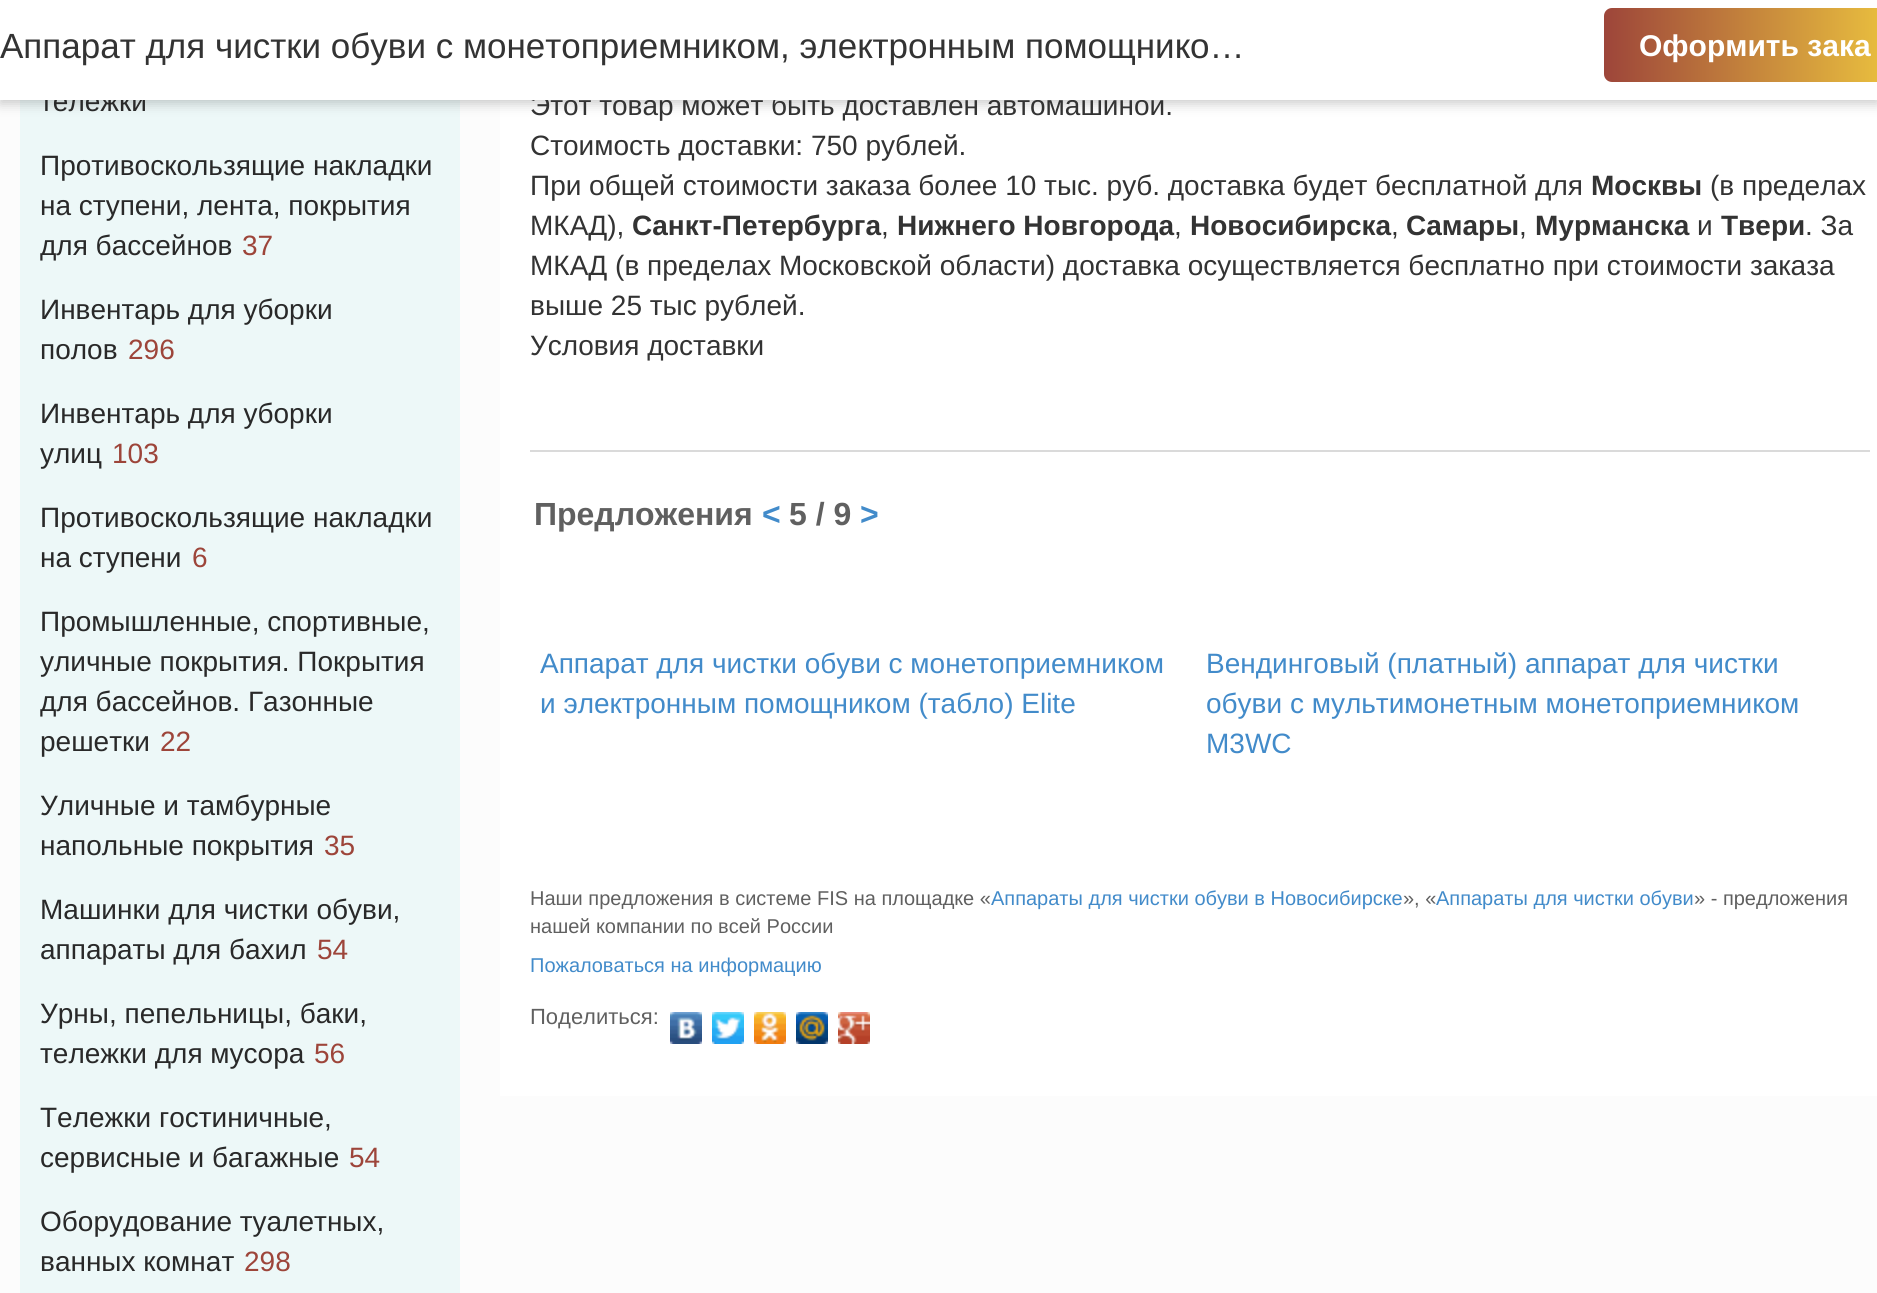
#include <cairo.h>
#include <math.h>
#include <stddef.h>


static void round_rect(cairo_t *cr, double x, double y, double w, double h, double r) {
    cairo_new_sub_path(cr);
    cairo_arc(cr, x + w - r, y + h - r, r, 0, M_PI / 2);
    cairo_arc(cr, x + r, y + h - r, r, M_PI / 2, M_PI);
    cairo_arc(cr, x + r, y + r, r, M_PI, 1.5 * M_PI);
    cairo_arc(cr, x + w - r, y + r, r, 1.5 * M_PI, 2 * M_PI);
    cairo_close_path(cr);
}

static void shadow(cairo_t *cr, double x, double y, double w, double h, double r, double blur, double alpha) {
    cairo_push_group_with_content(cr, CAIRO_CONTENT_ALPHA);
    cairo_set_operator(cr, CAIRO_OPERATOR_SOURCE);
    for (int i = 15; i >= -15 && fmin(w, h) + blur * i / 3 > 0; i -= 2) {
        double e = blur * i / 6;
        cairo_set_source_rgba(cr, 0, 0, 0, alpha * erfc((i - 1) / 8.5) / 2);
        round_rect(cr, x - e, y - e, w + 2 * e, h + 2 * e, fmax(0, fmin(r + e + blur * .6, fmin(w, h) / 2 + e)));
        cairo_fill(cr);
    }
    cairo_pattern_t *soft = cairo_pop_group(cr);
    cairo_mask(cr, soft);
    cairo_pattern_destroy(soft);
}

static void picture(cairo_t *cr, const char *path, double x, double y, double w, double h) {
    cairo_surface_t *image = cairo_image_surface_create_from_png(path);
    cairo_save(cr);
    cairo_set_source_surface(cr, image, x, y);
    cairo_rectangle(cr, x, y, w, h);
    cairo_fill(cr);
    cairo_restore(cr);
    cairo_surface_destroy(image);
}

int main(void) {
    cairo_surface_t *surface = cairo_image_surface_create(CAIRO_FORMAT_RGB24, 1877, 1293);
    cairo_t *cr = cairo_create(surface);
    cairo_font_options_t *options = cairo_font_options_create();
    cairo_font_options_set_hint_metrics(options, CAIRO_HINT_METRICS_OFF);
    cairo_font_options_set_hint_style(options, CAIRO_HINT_STYLE_NONE);
    cairo_set_font_options(cr, options);
    cairo_set_miter_limit(cr, 4);
    cairo_pattern_t *gradient;
    cairo_set_source_rgb(cr, 0.988, 0.988, 0.988);
    cairo_paint(cr);
    cairo_set_source_rgb(cr, 1, 1, 1);
    cairo_rectangle(cr, 500, 100, 1377, 996);
    cairo_fill(cr);
    cairo_set_source_rgb(cr, 0.929, 0.969, 0.969);
    cairo_rectangle(cr, 20, 100, 440, 1193);
    cairo_fill(cr);
    cairo_set_source_rgb(cr, 0, 0, 0);
    shadow(cr, 0, 4, 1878, 100, 0, 6, 0.2);
    cairo_select_font_face(cr, "Liberation Sans", CAIRO_FONT_SLANT_NORMAL, CAIRO_FONT_WEIGHT_NORMAL);
    cairo_set_font_size(cr, 28);
    cairo_set_source_rgb(cr, 0.2, 0.2, 0.2);
    cairo_move_to(cr, 530, 115);
    cairo_show_text(cr, "Этот товар может быть доставлен автомашиной.");
    cairo_set_source_rgb(cr, 0.161, 0.161, 0.161);
    cairo_move_to(cr, 40, 111);
    cairo_show_text(cr, "тележки");
    cairo_set_source_rgb(cr, 1, 1, 1);
    cairo_rectangle(cr, 0, 0, 1877, 100);
    cairo_fill(cr);
    cairo_set_font_size(cr, 35);
    cairo_set_source_rgb(cr, 0.2, 0.2, 0.2);
    cairo_move_to(cr, 0, 58);
    cairo_show_text(cr, "Аппарат для чистки обуви с монетоприемником, электронным помощнико…");
    gradient = cairo_pattern_create_linear(1604, 45, 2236, 45);
    cairo_pattern_add_color_stop_rgba(gradient, 0, 0.616, 0.271, 0.227, 1);
    cairo_pattern_add_color_stop_rgba(gradient, 0.51, 0.957, 0.816, 0.247, 1);
    cairo_pattern_add_color_stop_rgba(gradient, 1, 0.616, 0.271, 0.227, 1);
    cairo_set_source(cr, gradient);
    cairo_pattern_destroy(gradient);
    round_rect(cr, 1604, 8, 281, 74, 8);
    cairo_fill(cr);
    cairo_select_font_face(cr, "Liberation Sans", CAIRO_FONT_SLANT_NORMAL, CAIRO_FONT_WEIGHT_BOLD);
    cairo_set_font_size(cr, 30);
    cairo_set_source_rgb(cr, 1, 1, 1);
    cairo_move_to(cr, 1639, 56);
    cairo_show_text(cr, "Оформить зака");
    cairo_select_font_face(cr, "Liberation Sans", CAIRO_FONT_SLANT_NORMAL, CAIRO_FONT_WEIGHT_NORMAL);
    cairo_set_font_size(cr, 28);
    cairo_set_source_rgb(cr, 0.2, 0.2, 0.2);
    cairo_move_to(cr, 530, 155);
    cairo_show_text(cr, "Стоимость доставки: 750 рублей.");
    cairo_move_to(cr, 530, 195);
    cairo_show_text(cr, "При общей стоимости заказа более 10 тыс. руб. доставка будет бесплатной для");
    cairo_select_font_face(cr, "Liberation Sans", CAIRO_FONT_SLANT_NORMAL, CAIRO_FONT_WEIGHT_BOLD);
    cairo_move_to(cr, 1591, 195);
    cairo_show_text(cr, "Москвы");
    cairo_select_font_face(cr, "Liberation Sans", CAIRO_FONT_SLANT_NORMAL, CAIRO_FONT_WEIGHT_NORMAL);
    cairo_move_to(cr, 1710, 195);
    cairo_show_text(cr, "(в пределах");
    cairo_move_to(cr, 530, 235);
    cairo_show_text(cr, "МКАД),");
    cairo_select_font_face(cr, "Liberation Sans", CAIRO_FONT_SLANT_NORMAL, CAIRO_FONT_WEIGHT_BOLD);
    cairo_move_to(cr, 632, 235);
    cairo_show_text(cr, "Санкт-Петербурга");
    cairo_select_font_face(cr, "Liberation Sans", CAIRO_FONT_SLANT_NORMAL, CAIRO_FONT_WEIGHT_NORMAL);
    cairo_move_to(cr, 881, 235);
    cairo_show_text(cr, ",");
    cairo_select_font_face(cr, "Liberation Sans", CAIRO_FONT_SLANT_NORMAL, CAIRO_FONT_WEIGHT_BOLD);
    cairo_move_to(cr, 897, 235);
    cairo_show_text(cr, "Нижнего Новгорода");
    cairo_select_font_face(cr, "Liberation Sans", CAIRO_FONT_SLANT_NORMAL, CAIRO_FONT_WEIGHT_NORMAL);
    cairo_move_to(cr, 1174, 235);
    cairo_show_text(cr, ",");
    cairo_select_font_face(cr, "Liberation Sans", CAIRO_FONT_SLANT_NORMAL, CAIRO_FONT_WEIGHT_BOLD);
    cairo_move_to(cr, 1190, 235);
    cairo_show_text(cr, "Новосибирска");
    cairo_select_font_face(cr, "Liberation Sans", CAIRO_FONT_SLANT_NORMAL, CAIRO_FONT_WEIGHT_NORMAL);
    cairo_move_to(cr, 1391, 235);
    cairo_show_text(cr, ",");
    cairo_select_font_face(cr, "Liberation Sans", CAIRO_FONT_SLANT_NORMAL, CAIRO_FONT_WEIGHT_BOLD);
    cairo_move_to(cr, 1406, 235);
    cairo_show_text(cr, "Самары");
    cairo_select_font_face(cr, "Liberation Sans", CAIRO_FONT_SLANT_NORMAL, CAIRO_FONT_WEIGHT_NORMAL);
    cairo_move_to(cr, 1519, 235);
    cairo_show_text(cr, ",");
    cairo_select_font_face(cr, "Liberation Sans", CAIRO_FONT_SLANT_NORMAL, CAIRO_FONT_WEIGHT_BOLD);
    cairo_move_to(cr, 1535, 235);
    cairo_show_text(cr, "Мурманска");
    cairo_select_font_face(cr, "Liberation Sans", CAIRO_FONT_SLANT_NORMAL, CAIRO_FONT_WEIGHT_NORMAL);
    cairo_move_to(cr, 1697, 235);
    cairo_show_text(cr, "и");
    cairo_select_font_face(cr, "Liberation Sans", CAIRO_FONT_SLANT_NORMAL, CAIRO_FONT_WEIGHT_BOLD);
    cairo_move_to(cr, 1721, 235);
    cairo_show_text(cr, "Твери");
    cairo_select_font_face(cr, "Liberation Sans", CAIRO_FONT_SLANT_NORMAL, CAIRO_FONT_WEIGHT_NORMAL);
    cairo_move_to(cr, 1805, 235);
    cairo_show_text(cr, ". За");
    cairo_move_to(cr, 530, 275);
    cairo_show_text(cr, "МКАД (в пределах Московской области) доставка осуществляется бесплатно при стоимости заказа");
    cairo_move_to(cr, 530, 315);
    cairo_show_text(cr, "выше 25 тыс рублей.");
    cairo_move_to(cr, 530, 355);
    cairo_show_text(cr, "Условия доставки");
    cairo_set_source_rgb(cr, 0.855, 0.855, 0.855);
    cairo_rectangle(cr, 530, 450, 1340, 2);
    cairo_fill(cr);
    cairo_select_font_face(cr, "Liberation Sans", CAIRO_FONT_SLANT_NORMAL, CAIRO_FONT_WEIGHT_BOLD);
    cairo_set_font_size(cr, 32);
    cairo_set_source_rgb(cr, 0.376, 0.376, 0.376);
    cairo_move_to(cr, 534, 525);
    cairo_show_text(cr, "Предложения");
    cairo_set_source_rgb(cr, 0.259, 0.545, 0.792);
    cairo_move_to(cr, 762, 525);
    cairo_show_text(cr, "<");
    cairo_set_source_rgb(cr, 0.376, 0.376, 0.376);
    cairo_move_to(cr, 789, 525);
    cairo_show_text(cr, "5 / 9");
    cairo_set_source_rgb(cr, 0.259, 0.545, 0.792);
    cairo_move_to(cr, 860, 525);
    cairo_show_text(cr, ">");
    cairo_select_font_face(cr, "Liberation Sans", CAIRO_FONT_SLANT_NORMAL, CAIRO_FONT_WEIGHT_NORMAL);
    cairo_set_font_size(cr, 28);
    cairo_move_to(cr, 540, 673);
    cairo_show_text(cr, "Аппарат для чистки обуви с монетоприемником");
    cairo_move_to(cr, 540, 713);
    cairo_show_text(cr, "и электронным помощником (табло) Elite");
    cairo_move_to(cr, 1206, 673);
    cairo_show_text(cr, "Вендинговый (платный) аппарат для чистки");
    cairo_move_to(cr, 1206, 713);
    cairo_show_text(cr, "обуви с мультимонетным монетоприемником");
    cairo_move_to(cr, 1206, 753);
    cairo_show_text(cr, "M3WC");
    cairo_set_font_size(cr, 20);
    cairo_set_source_rgb(cr, 0.376, 0.376, 0.376);
    cairo_move_to(cr, 530, 905);
    cairo_show_text(cr, "Наши предложения в системе FIS на площадке «");
    cairo_set_source_rgb(cr, 0.259, 0.545, 0.792);
    cairo_move_to(cr, 991, 905);
    cairo_show_text(cr, "Аппараты для чистки обуви в Новосибирске");
    cairo_set_source_rgb(cr, 0.376, 0.376, 0.376);
    cairo_move_to(cr, 1403, 905);
    cairo_show_text(cr, "», «");
    cairo_set_source_rgb(cr, 0.259, 0.545, 0.792);
    cairo_move_to(cr, 1436, 905);
    cairo_show_text(cr, "Аппараты для чистки обуви");
    cairo_set_source_rgb(cr, 0.376, 0.376, 0.376);
    cairo_move_to(cr, 1694, 905);
    cairo_show_text(cr, "» - предложения");
    cairo_move_to(cr, 530, 933);
    cairo_show_text(cr, "нашей компании по всей России");
    cairo_set_source_rgb(cr, 0.259, 0.545, 0.792);
    cairo_move_to(cr, 530, 972);
    cairo_show_text(cr, "Пожаловаться на информацию");
    cairo_set_font_size(cr, 22);
    cairo_set_source_rgb(cr, 0.376, 0.376, 0.376);
    cairo_move_to(cr, 530, 1024);
    cairo_show_text(cr, "Поделиться:");
    picture(cr, "img1.png", 670, 1012, 32, 32);
    picture(cr, "img2.png", 712, 1012, 32, 32);
    picture(cr, "img3.png", 754, 1012, 32, 32);
    picture(cr, "img4.png", 796, 1012, 32, 32);
    picture(cr, "img5.png", 838, 1012, 32, 32);
    cairo_set_font_size(cr, 28);
    cairo_set_source_rgb(cr, 0.161, 0.161, 0.161);
    cairo_move_to(cr, 40, 175);
    cairo_show_text(cr, "Противоскользящие накладки");
    cairo_move_to(cr, 40, 215);
    cairo_show_text(cr, "на ступени, лента, покрытия");
    cairo_move_to(cr, 40, 255);
    cairo_show_text(cr, "для бассейнов");
    cairo_set_source_rgb(cr, 0.616, 0.271, 0.227);
    cairo_move_to(cr, 242, 255);
    cairo_show_text(cr, "37");
    cairo_set_source_rgb(cr, 0.161, 0.161, 0.161);
    cairo_move_to(cr, 40, 319);
    cairo_show_text(cr, "Инвентарь для уборки");
    cairo_move_to(cr, 40, 359);
    cairo_show_text(cr, "полов");
    cairo_set_source_rgb(cr, 0.616, 0.271, 0.227);
    cairo_move_to(cr, 128, 359);
    cairo_show_text(cr, "296");
    cairo_set_source_rgb(cr, 0.161, 0.161, 0.161);
    cairo_move_to(cr, 40, 423);
    cairo_show_text(cr, "Инвентарь для уборки");
    cairo_move_to(cr, 40, 463);
    cairo_show_text(cr, "улиц");
    cairo_set_source_rgb(cr, 0.616, 0.271, 0.227);
    cairo_move_to(cr, 112, 463);
    cairo_show_text(cr, "103");
    cairo_set_source_rgb(cr, 0.161, 0.161, 0.161);
    cairo_move_to(cr, 40, 527);
    cairo_show_text(cr, "Противоскользящие накладки");
    cairo_move_to(cr, 40, 567);
    cairo_show_text(cr, "на ступени");
    cairo_set_source_rgb(cr, 0.616, 0.271, 0.227);
    cairo_move_to(cr, 192, 567);
    cairo_show_text(cr, "6");
    cairo_set_source_rgb(cr, 0.161, 0.161, 0.161);
    cairo_move_to(cr, 40, 631);
    cairo_show_text(cr, "Промышленные, спортивные,");
    cairo_move_to(cr, 40, 671);
    cairo_show_text(cr, "уличные покрытия. Покрытия");
    cairo_move_to(cr, 40, 711);
    cairo_show_text(cr, "для бассейнов. Газонные");
    cairo_move_to(cr, 40, 751);
    cairo_show_text(cr, "решетки");
    cairo_set_source_rgb(cr, 0.616, 0.271, 0.227);
    cairo_move_to(cr, 160, 751);
    cairo_show_text(cr, "22");
    cairo_set_source_rgb(cr, 0.161, 0.161, 0.161);
    cairo_move_to(cr, 40, 815);
    cairo_show_text(cr, "Уличные и тамбурные");
    cairo_move_to(cr, 40, 855);
    cairo_show_text(cr, "напольные покрытия");
    cairo_set_source_rgb(cr, 0.616, 0.271, 0.227);
    cairo_move_to(cr, 324, 855);
    cairo_show_text(cr, "35");
    cairo_set_source_rgb(cr, 0.161, 0.161, 0.161);
    cairo_move_to(cr, 40, 919);
    cairo_show_text(cr, "Машинки для чистки обуви,");
    cairo_move_to(cr, 40, 959);
    cairo_show_text(cr, "аппараты для бахил");
    cairo_set_source_rgb(cr, 0.616, 0.271, 0.227);
    cairo_move_to(cr, 317, 959);
    cairo_show_text(cr, "54");
    cairo_set_source_rgb(cr, 0.161, 0.161, 0.161);
    cairo_move_to(cr, 40, 1023);
    cairo_show_text(cr, "Урны, пепельницы, баки,");
    cairo_move_to(cr, 40, 1063);
    cairo_show_text(cr, "тележки для мусора");
    cairo_set_source_rgb(cr, 0.616, 0.271, 0.227);
    cairo_move_to(cr, 314, 1063);
    cairo_show_text(cr, "56");
    cairo_set_source_rgb(cr, 0.161, 0.161, 0.161);
    cairo_move_to(cr, 40, 1127);
    cairo_show_text(cr, "Тележки гостиничные,");
    cairo_move_to(cr, 40, 1167);
    cairo_show_text(cr, "сервисные и багажные");
    cairo_set_source_rgb(cr, 0.616, 0.271, 0.227);
    cairo_move_to(cr, 349, 1167);
    cairo_show_text(cr, "54");
    cairo_set_source_rgb(cr, 0.161, 0.161, 0.161);
    cairo_move_to(cr, 40, 1231);
    cairo_show_text(cr, "Оборудование туалетных,");
    cairo_move_to(cr, 40, 1271);
    cairo_show_text(cr, "ванных комнат");
    cairo_set_source_rgb(cr, 0.616, 0.271, 0.227);
    cairo_move_to(cr, 244, 1271);
    cairo_show_text(cr, "298");
    cairo_surface_write_to_png(surface, "page.png");
    cairo_font_options_destroy(options);
    cairo_destroy(cr);
    cairo_surface_destroy(surface);
    return 0;
}
